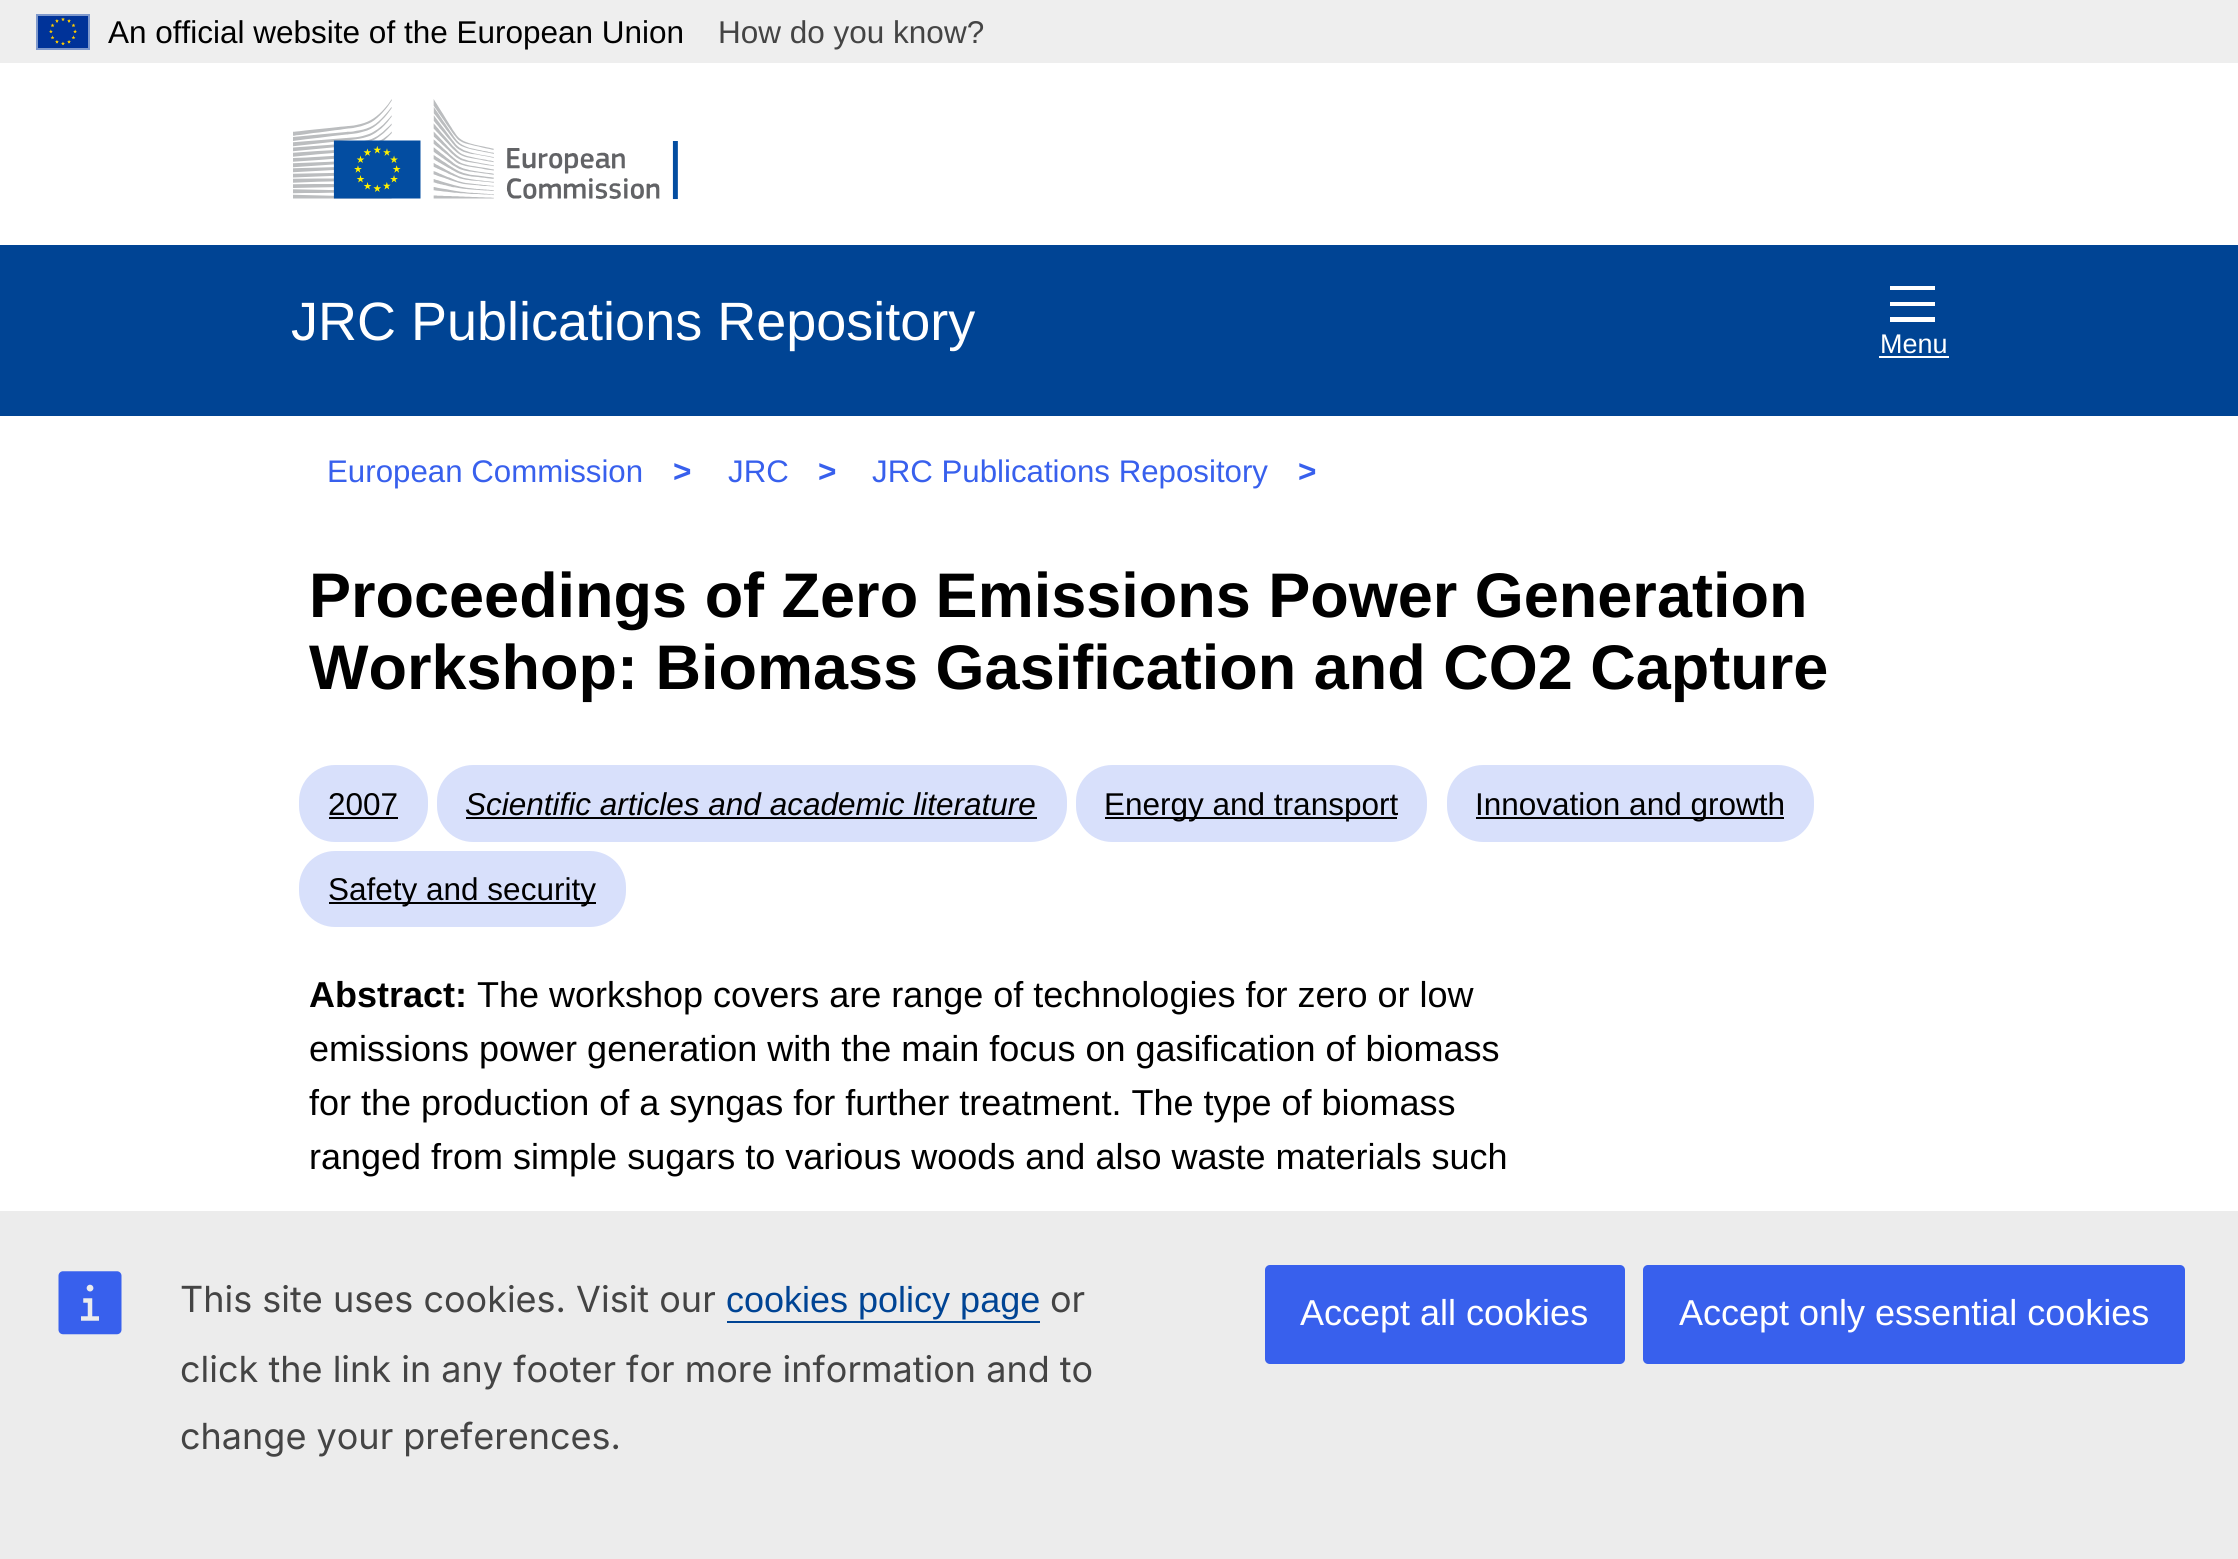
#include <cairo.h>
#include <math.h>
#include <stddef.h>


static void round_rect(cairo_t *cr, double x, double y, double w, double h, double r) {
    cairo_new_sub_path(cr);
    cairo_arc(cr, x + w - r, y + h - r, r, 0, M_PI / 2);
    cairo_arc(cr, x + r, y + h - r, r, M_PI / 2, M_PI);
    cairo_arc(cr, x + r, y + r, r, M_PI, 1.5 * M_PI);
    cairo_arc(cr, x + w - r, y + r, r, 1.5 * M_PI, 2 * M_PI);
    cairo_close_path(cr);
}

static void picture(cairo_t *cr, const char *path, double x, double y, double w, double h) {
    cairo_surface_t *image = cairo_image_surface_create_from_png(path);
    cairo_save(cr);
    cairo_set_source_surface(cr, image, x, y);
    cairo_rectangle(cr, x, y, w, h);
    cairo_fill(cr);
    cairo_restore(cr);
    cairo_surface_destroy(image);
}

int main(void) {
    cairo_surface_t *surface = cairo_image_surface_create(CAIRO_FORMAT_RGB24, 2238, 1559);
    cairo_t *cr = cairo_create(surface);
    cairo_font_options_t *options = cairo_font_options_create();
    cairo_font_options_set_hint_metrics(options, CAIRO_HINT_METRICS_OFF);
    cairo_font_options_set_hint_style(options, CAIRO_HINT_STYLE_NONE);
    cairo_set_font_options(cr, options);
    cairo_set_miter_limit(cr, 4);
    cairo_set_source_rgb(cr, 1, 1, 1);
    cairo_paint(cr);
    cairo_set_source_rgb(cr, 0.933, 0.933, 0.933);
    cairo_rectangle(cr, 0, 0, 2238, 63);
    cairo_fill(cr);
    picture(cr, "img1.png", 38, 16, 50, 32);
    cairo_rectangle(cr, 37, 15, 52, 34);
    cairo_set_source_rgb(cr, 0.498, 0.6, 0.8);
    cairo_stroke(cr);
    cairo_select_font_face(cr, "Liberation Sans", CAIRO_FONT_SLANT_NORMAL, CAIRO_FONT_WEIGHT_NORMAL);
    cairo_set_font_size(cr, 31.5);
    cairo_set_source_rgb(cr, 0, 0, 0);
    cairo_move_to(cr, 108, 43);
    cairo_show_text(cr, "An official website of the European Union");
    cairo_set_source_rgb(cr, 0.267, 0.267, 0.267);
    cairo_move_to(cr, 718, 43);
    cairo_show_text(cr, "How do you know?");
    picture(cr, "img2.png", 293, 99, 385, 101);
    cairo_set_source_rgb(cr, 0, 0.267, 0.58);
    cairo_rectangle(cr, 0, 245, 2238, 171);
    cairo_fill(cr);
    cairo_set_font_size(cr, 54);
    cairo_set_source_rgb(cr, 1, 1, 1);
    cairo_move_to(cr, 291, 340);
    cairo_show_text(cr, "JRC Publications Repository");
    cairo_new_path(cr);
    cairo_move_to(cr, 1890, 317);
    cairo_line_to(cr, 1935, 317);
    cairo_line_to(cr, 1935, 322);
    cairo_line_to(cr, 1890, 322);
    cairo_close_path(cr);
    cairo_move_to(cr, 1890, 302);
    cairo_line_to(cr, 1935, 302);
    cairo_line_to(cr, 1935, 306);
    cairo_line_to(cr, 1890, 306);
    cairo_close_path(cr);
    cairo_move_to(cr, 1890, 286);
    cairo_line_to(cr, 1935, 286);
    cairo_line_to(cr, 1935, 290);
    cairo_line_to(cr, 1890, 290);
    cairo_close_path(cr);
    cairo_fill(cr);
    cairo_set_font_size(cr, 27);
    cairo_move_to(cr, 1880, 353);
    cairo_show_text(cr, "Menu");
    cairo_rectangle(cr, 1879, 356, 70, 2);
    cairo_fill(cr);
    cairo_set_font_size(cr, 31.25);
    cairo_set_source_rgb(cr, 0.22, 0.376, 0.929);
    cairo_move_to(cr, 327, 482);
    cairo_show_text(cr, "European Commission");
    cairo_select_font_face(cr, "Liberation Sans", CAIRO_FONT_SLANT_NORMAL, CAIRO_FONT_WEIGHT_BOLD);
    cairo_set_font_size(cr, 31.5);
    cairo_move_to(cr, 673, 482);
    cairo_show_text(cr, ">");
    cairo_select_font_face(cr, "Liberation Sans", CAIRO_FONT_SLANT_NORMAL, CAIRO_FONT_WEIGHT_NORMAL);
    cairo_set_font_size(cr, 31.25);
    cairo_move_to(cr, 728, 482);
    cairo_show_text(cr, "JRC");
    cairo_select_font_face(cr, "Liberation Sans", CAIRO_FONT_SLANT_NORMAL, CAIRO_FONT_WEIGHT_BOLD);
    cairo_set_font_size(cr, 31.5);
    cairo_move_to(cr, 818, 482);
    cairo_show_text(cr, ">");
    cairo_select_font_face(cr, "Liberation Sans", CAIRO_FONT_SLANT_NORMAL, CAIRO_FONT_WEIGHT_NORMAL);
    cairo_set_font_size(cr, 31.25);
    cairo_move_to(cr, 872, 482);
    cairo_show_text(cr, "JRC Publications Repository");
    cairo_select_font_face(cr, "Liberation Sans", CAIRO_FONT_SLANT_NORMAL, CAIRO_FONT_WEIGHT_BOLD);
    cairo_set_font_size(cr, 31.5);
    cairo_move_to(cr, 1298, 482);
    cairo_show_text(cr, ">");
    cairo_set_font_size(cr, 63);
    cairo_set_source_rgb(cr, 0, 0, 0);
    cairo_move_to(cr, 309, 617);
    cairo_show_text(cr, "Proceedings of Zero Emissions Power Generation");
    cairo_move_to(cr, 309, 689);
    cairo_show_text(cr, "Workshop: Biomass Gasification and CO2 Capture");
    cairo_set_source_rgb(cr, 0.847, 0.878, 0.984);
    round_rect(cr, 1076, 765, 351, 77, 36);
    cairo_fill(cr);
    cairo_set_source_rgb(cr, 0, 0, 0);
    cairo_rectangle(cr, 1105, 817, 292, 2);
    cairo_fill(cr);
    cairo_select_font_face(cr, "Liberation Sans", CAIRO_FONT_SLANT_NORMAL, CAIRO_FONT_WEIGHT_NORMAL);
    cairo_set_font_size(cr, 31.5);
    cairo_move_to(cr, 1104, 815);
    cairo_show_text(cr, "Energy and transport");
    cairo_set_source_rgb(cr, 0.847, 0.878, 0.984);
    round_rect(cr, 1447, 765, 367, 77, 36);
    cairo_fill(cr);
    cairo_set_source_rgb(cr, 0, 0, 0);
    cairo_rectangle(cr, 1476, 817, 308, 2);
    cairo_fill(cr);
    cairo_move_to(cr, 1475, 815);
    cairo_show_text(cr, "Innovation and growth");
    cairo_set_source_rgb(cr, 0.847, 0.878, 0.984);
    round_rect(cr, 299, 851, 327, 76, 36);
    cairo_fill(cr);
    cairo_set_source_rgb(cr, 0, 0, 0);
    cairo_rectangle(cr, 329, 902, 267, 2);
    cairo_fill(cr);
    cairo_move_to(cr, 328, 900);
    cairo_show_text(cr, "Safety and security");
    cairo_set_source_rgb(cr, 0.847, 0.878, 0.984);
    round_rect(cr, 299, 765, 129, 77, 36);
    cairo_fill(cr);
    cairo_set_source_rgb(cr, 0, 0, 0);
    cairo_move_to(cr, 328, 815);
    cairo_show_text(cr, "2007");
    cairo_rectangle(cr, 329, 817, 69, 2);
    cairo_fill(cr);
    cairo_set_source_rgb(cr, 0.847, 0.878, 0.984);
    round_rect(cr, 437, 765, 630, 77, 36);
    cairo_fill(cr);
    cairo_select_font_face(cr, "Liberation Sans", CAIRO_FONT_SLANT_ITALIC, CAIRO_FONT_WEIGHT_NORMAL);
    cairo_set_source_rgb(cr, 0, 0, 0);
    cairo_move_to(cr, 465, 815);
    cairo_show_text(cr, "Scientific articles and academic literature");
    cairo_rectangle(cr, 466, 817, 571, 2);
    cairo_fill(cr);
    cairo_select_font_face(cr, "Liberation Sans", CAIRO_FONT_SLANT_NORMAL, CAIRO_FONT_WEIGHT_BOLD);
    cairo_set_font_size(cr, 36);
    cairo_move_to(cr, 309, 1007);
    cairo_show_text(cr, "Abstract:");
    cairo_select_font_face(cr, "Liberation Sans", CAIRO_FONT_SLANT_NORMAL, CAIRO_FONT_WEIGHT_NORMAL);
    cairo_move_to(cr, 477, 1007);
    cairo_show_text(cr, "The workshop covers are range of technologies for zero or low");
    cairo_move_to(cr, 309, 1061);
    cairo_show_text(cr, "emissions power generation with the main focus on gasification of biomass");
    cairo_move_to(cr, 309, 1115);
    cairo_show_text(cr, "for the production of a syngas for further treatment. The type of biomass");
    cairo_move_to(cr, 309, 1169);
    cairo_show_text(cr, "ranged from simple sugars to various woods and also waste materials such");
    cairo_set_source_rgb(cr, 0.922, 0.922, 0.922);
    cairo_rectangle(cr, 0, 1211, 2238, 348);
    cairo_fill(cr);
    picture(cr, "img3.png", 58, 1271, 64, 64);
    cairo_select_font_face(cr, "Inter", CAIRO_FONT_SLANT_NORMAL, CAIRO_FONT_WEIGHT_NORMAL);
    cairo_set_source_rgb(cr, 0.267, 0.267, 0.267);
    cairo_move_to(cr, 180, 1312);
    cairo_show_text(cr, "This site uses cookies. Visit our");
    cairo_select_font_face(cr, "Liberation Sans", CAIRO_FONT_SLANT_NORMAL, CAIRO_FONT_WEIGHT_NORMAL);
    cairo_set_source_rgb(cr, 0, 0.267, 0.58);
    cairo_move_to(cr, 726, 1312);
    cairo_show_text(cr, "cookies policy page");
    cairo_rectangle(cr, 727, 1321, 313, 2);
    cairo_fill(cr);
    cairo_select_font_face(cr, "Inter", CAIRO_FONT_SLANT_NORMAL, CAIRO_FONT_WEIGHT_NORMAL);
    cairo_set_source_rgb(cr, 0.267, 0.267, 0.267);
    cairo_move_to(cr, 1050, 1312);
    cairo_show_text(cr, "or");
    cairo_move_to(cr, 180, 1382);
    cairo_show_text(cr, "click the link in any footer for more information and to");
    cairo_move_to(cr, 180, 1449);
    cairo_show_text(cr, "change your preferences.");
    cairo_set_source_rgb(cr, 0.22, 0.376, 0.929);
    round_rect(cr, 1265, 1265, 360, 99, 5);
    cairo_fill(cr);
    cairo_select_font_face(cr, "Liberation Sans", CAIRO_FONT_SLANT_NORMAL, CAIRO_FONT_WEIGHT_NORMAL);
    cairo_set_source_rgb(cr, 1, 1, 1);
    cairo_move_to(cr, 1300, 1325);
    cairo_show_text(cr, "Accept all cookies");
    cairo_set_source_rgb(cr, 0.22, 0.376, 0.929);
    round_rect(cr, 1643, 1265, 542, 99, 5);
    cairo_fill(cr);
    cairo_set_source_rgb(cr, 1, 1, 1);
    cairo_move_to(cr, 1679, 1325);
    cairo_show_text(cr, "Accept only essential cookies");
    cairo_surface_write_to_png(surface, "page.png");
    cairo_font_options_destroy(options);
    cairo_destroy(cr);
    cairo_surface_destroy(surface);
    return 0;
}
